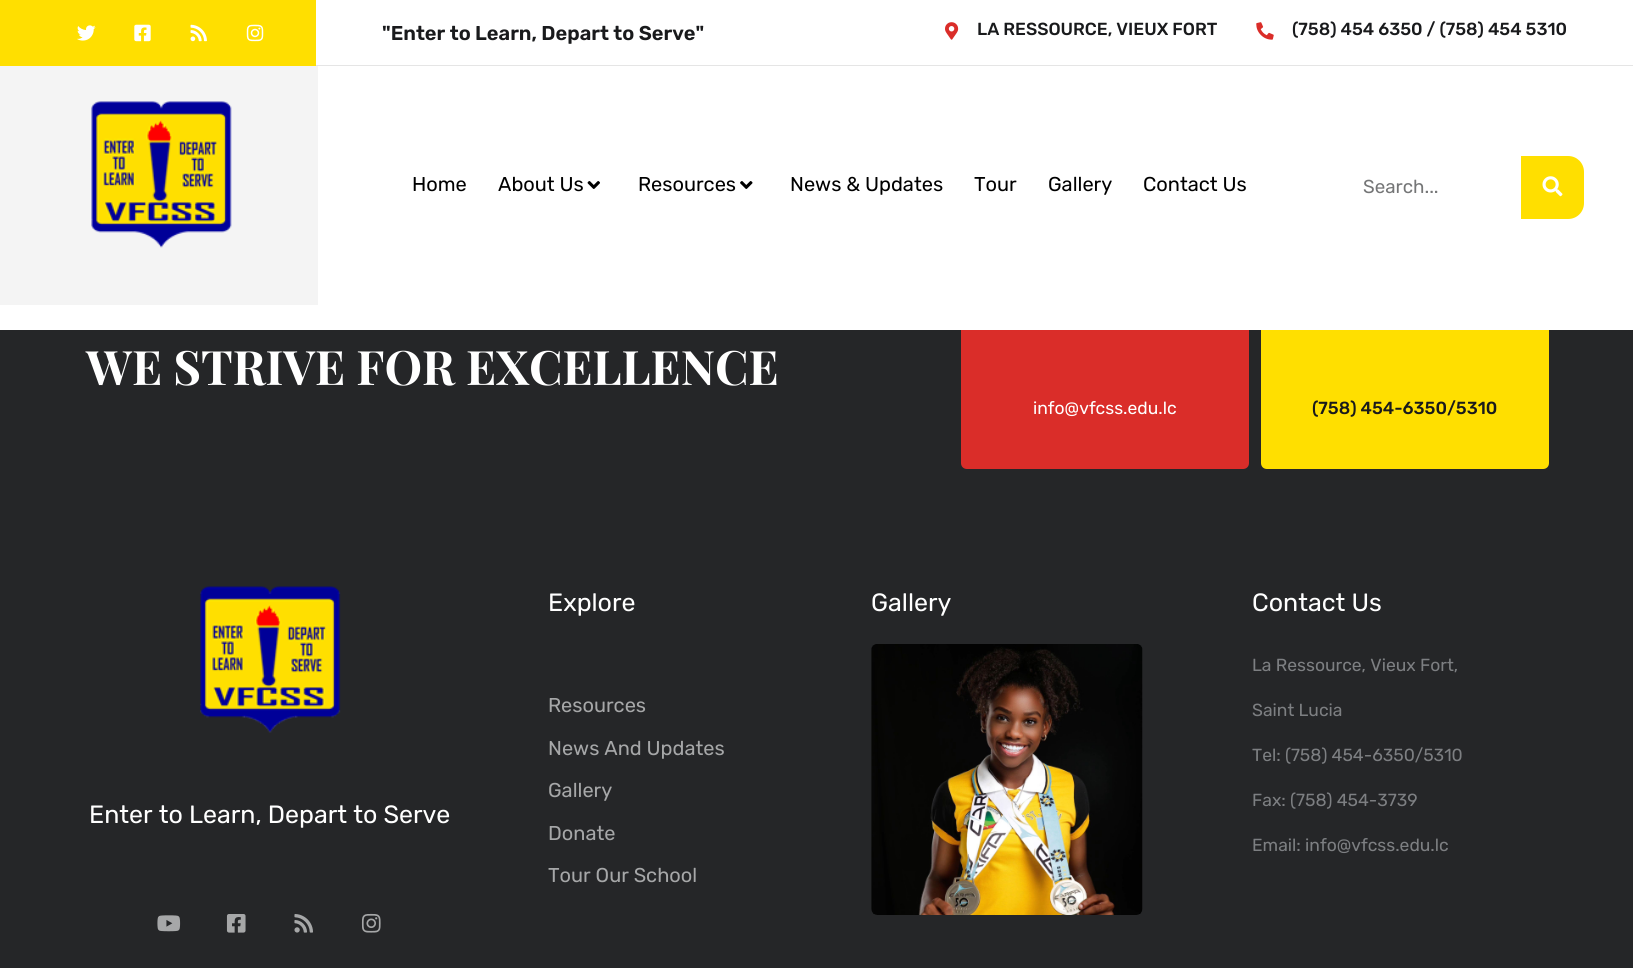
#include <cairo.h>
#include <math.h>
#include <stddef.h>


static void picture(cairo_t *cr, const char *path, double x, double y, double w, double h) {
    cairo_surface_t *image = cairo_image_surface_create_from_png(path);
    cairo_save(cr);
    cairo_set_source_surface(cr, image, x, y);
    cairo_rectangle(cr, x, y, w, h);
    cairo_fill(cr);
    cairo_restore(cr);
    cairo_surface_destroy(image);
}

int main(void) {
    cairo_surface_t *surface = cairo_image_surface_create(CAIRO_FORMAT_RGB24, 1633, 968);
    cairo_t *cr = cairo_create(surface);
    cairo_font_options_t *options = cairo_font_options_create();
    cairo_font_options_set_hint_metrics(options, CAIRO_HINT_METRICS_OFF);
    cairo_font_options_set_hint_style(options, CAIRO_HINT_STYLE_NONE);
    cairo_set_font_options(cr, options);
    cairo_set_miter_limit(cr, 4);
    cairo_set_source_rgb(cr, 1, 1, 1);
    cairo_paint(cr);
    cairo_set_source_rgb(cr, 1, 0.875, 0);
    cairo_rectangle(cr, 0, 0, 316, 66);
    cairo_fill(cr);
    picture(cr, "img1.png", 77, 25, 19, 16);
    picture(cr, "img2.png", 134, 24, 17, 18);
    picture(cr, "img3.png", 190, 24, 17, 18);
    picture(cr, "img4.png", 246, 24, 18, 18);
    cairo_set_source_rgb(cr, 0.898, 0.898, 0.898);
    cairo_rectangle(cr, 316, 65, 1317, 1);
    cairo_fill(cr);
    cairo_select_font_face(cr, "Rubik SemiBold", CAIRO_FONT_SLANT_NORMAL, CAIRO_FONT_WEIGHT_NORMAL);
    cairo_set_font_size(cr, 20);
    cairo_set_source_rgb(cr, 0.098, 0.102, 0.11);
    cairo_move_to(cr, 382, 40);
    cairo_show_text(cr, "\"Enter to Learn, Depart to Serve\"");
    picture(cr, "img5.png", 945, 22, 14, 18);
    cairo_select_font_face(cr, "Rubik Medium", CAIRO_FONT_SLANT_NORMAL, CAIRO_FONT_WEIGHT_NORMAL);
    cairo_set_font_size(cr, 17.5);
    cairo_move_to(cr, 977, 35);
    cairo_show_text(cr, "LA RESSOURCE, VIEUX FORT");
    picture(cr, "img6.png", 1256, 22, 18, 18);
    cairo_move_to(cr, 1292, 35);
    cairo_show_text(cr, "(758) 454 6350 / (758) 454 5310");
    cairo_set_source_rgb(cr, 0.957, 0.957, 0.957);
    cairo_rectangle(cr, 0, 66, 318, 239);
    cairo_fill(cr);
    picture(cr, "img7.png", 91, 101, 141, 147);
    cairo_select_font_face(cr, "Rubik", CAIRO_FONT_SLANT_NORMAL, CAIRO_FONT_WEIGHT_NORMAL);
    cairo_set_font_size(cr, 20);
    cairo_set_source_rgb(cr, 0, 0, 0);
    cairo_move_to(cr, 412, 191);
    cairo_show_text(cr, "Home");
    cairo_move_to(cr, 498, 191);
    cairo_show_text(cr, "About Us");
    picture(cr, "img8.png", 587, 181, 13, 8);
    cairo_move_to(cr, 638, 191);
    cairo_show_text(cr, "Resources");
    picture(cr, "img9.png", 740, 181, 13, 8);
    cairo_move_to(cr, 790, 191);
    cairo_show_text(cr, "News & Updates");
    cairo_move_to(cr, 974, 191);
    cairo_show_text(cr, "Tour");
    cairo_move_to(cr, 1048, 191);
    cairo_show_text(cr, "Gallery");
    cairo_move_to(cr, 1143, 191);
    cairo_show_text(cr, "Contact Us");
    cairo_set_font_size(cr, 18.75);
    cairo_set_source_rgb(cr, 0.459, 0.463, 0.467);
    cairo_move_to(cr, 1363, 193);
    cairo_show_text(cr, "Search...");
    cairo_set_source_rgb(cr, 1, 0.875, 0);
    cairo_new_path(cr);
    cairo_move_to(cr, 1521, 156);
    cairo_line_to(cr, 1568, 156);
    cairo_curve_to(cr, 1577, 156, 1584, 163, 1584, 172);
    cairo_line_to(cr, 1584, 203);
    cairo_curve_to(cr, 1584, 212, 1577, 219, 1568, 219);
    cairo_line_to(cr, 1521, 219);
    cairo_close_path(cr);
    cairo_fill(cr);
    picture(cr, "img10.png", 1542, 176, 21, 21);
    cairo_set_source_rgb(cr, 0.145, 0.149, 0.157);
    cairo_rectangle(cr, 0, 330, 1633, 638);
    cairo_fill(cr);
    cairo_select_font_face(cr, "Playfair Display", CAIRO_FONT_SLANT_NORMAL, CAIRO_FONT_WEIGHT_BOLD);
    cairo_set_font_size(cr, 47.5);
    cairo_set_source_rgb(cr, 1, 1, 1);
    cairo_move_to(cr, 86, 385);
    cairo_show_text(cr, "WE STRIVE FOR EXCELLENCE");
    cairo_set_source_rgb(cr, 0.855, 0.176, 0.161);
    cairo_new_path(cr);
    cairo_move_to(cr, 961, 330);
    cairo_line_to(cr, 1249, 330);
    cairo_line_to(cr, 1249, 463);
    cairo_curve_to(cr, 1249, 466.5, 1246.5, 469, 1243, 469);
    cairo_line_to(cr, 967, 469);
    cairo_curve_to(cr, 963.5, 469, 961, 466.5, 961, 463);
    cairo_close_path(cr);
    cairo_fill(cr);
    cairo_select_font_face(cr, "Rubik", CAIRO_FONT_SLANT_NORMAL, CAIRO_FONT_WEIGHT_NORMAL);
    cairo_set_font_size(cr, 17.5);
    cairo_set_source_rgb(cr, 1, 1, 1);
    cairo_move_to(cr, 1033, 414);
    cairo_show_text(cr, "info@vfcss.edu.lc");
    cairo_set_source_rgb(cr, 1, 0.875, 0);
    cairo_new_path(cr);
    cairo_move_to(cr, 1261, 330);
    cairo_line_to(cr, 1549, 330);
    cairo_line_to(cr, 1549, 463);
    cairo_curve_to(cr, 1549, 466.5, 1546.5, 469, 1543, 469);
    cairo_line_to(cr, 1267, 469);
    cairo_curve_to(cr, 1263.5, 469, 1261, 466.5, 1261, 463);
    cairo_close_path(cr);
    cairo_fill(cr);
    cairo_select_font_face(cr, "Rubik Medium", CAIRO_FONT_SLANT_NORMAL, CAIRO_FONT_WEIGHT_NORMAL);
    cairo_set_source_rgb(cr, 0.098, 0.102, 0.11);
    cairo_move_to(cr, 1312, 414);
    cairo_show_text(cr, "(758) 454-6350/5310");
    picture(cr, "img11.png", 200, 586, 141, 147);
    cairo_select_font_face(cr, "Rubik", CAIRO_FONT_SLANT_NORMAL, CAIRO_FONT_WEIGHT_NORMAL);
    cairo_set_font_size(cr, 25);
    cairo_set_source_rgb(cr, 1, 1, 1);
    cairo_move_to(cr, 89, 823);
    cairo_show_text(cr, "Enter to Learn, Depart to Serve");
    picture(cr, "img12.png", 157, 915, 24, 17);
    picture(cr, "img13.png", 226, 914, 20, 19);
    picture(cr, "img14.png", 294, 914, 19, 19);
    picture(cr, "img15.png", 361, 913, 20, 20);
    cairo_move_to(cr, 548, 611);
    cairo_show_text(cr, "Explore");
    cairo_set_font_size(cr, 20);
    cairo_set_source_rgb(cr, 0.651, 0.655, 0.659);
    cairo_move_to(cr, 548, 712);
    cairo_show_text(cr, "Resources");
    cairo_move_to(cr, 548, 755);
    cairo_show_text(cr, "News And Updates");
    cairo_move_to(cr, 548, 797);
    cairo_show_text(cr, "Gallery");
    cairo_move_to(cr, 548, 840);
    cairo_show_text(cr, "Donate");
    cairo_move_to(cr, 548, 882);
    cairo_show_text(cr, "Tour Our School");
    cairo_set_font_size(cr, 25);
    cairo_set_source_rgb(cr, 1, 1, 1);
    cairo_move_to(cr, 871, 611);
    cairo_show_text(cr, "Gallery");
    picture(cr, "img16.png", 871, 644, 272, 271);
    cairo_move_to(cr, 1252, 611);
    cairo_show_text(cr, "Contact Us");
    cairo_set_font_size(cr, 17.5);
    cairo_set_source_rgb(cr, 0.49, 0.498, 0.51);
    cairo_move_to(cr, 1252, 671);
    cairo_show_text(cr, "La Ressource, Vieux Fort,");
    cairo_move_to(cr, 1252, 716);
    cairo_show_text(cr, "Saint Lucia");
    cairo_move_to(cr, 1252, 761);
    cairo_show_text(cr, "Tel: (758) 454-6350/5310");
    cairo_move_to(cr, 1252, 806);
    cairo_show_text(cr, "Fax: (758) 454-3739");
    cairo_move_to(cr, 1252, 851);
    cairo_show_text(cr, "Email: info@vfcss.edu.lc");
    cairo_surface_write_to_png(surface, "page.png");
    cairo_font_options_destroy(options);
    cairo_destroy(cr);
    cairo_surface_destroy(surface);
    return 0;
}
